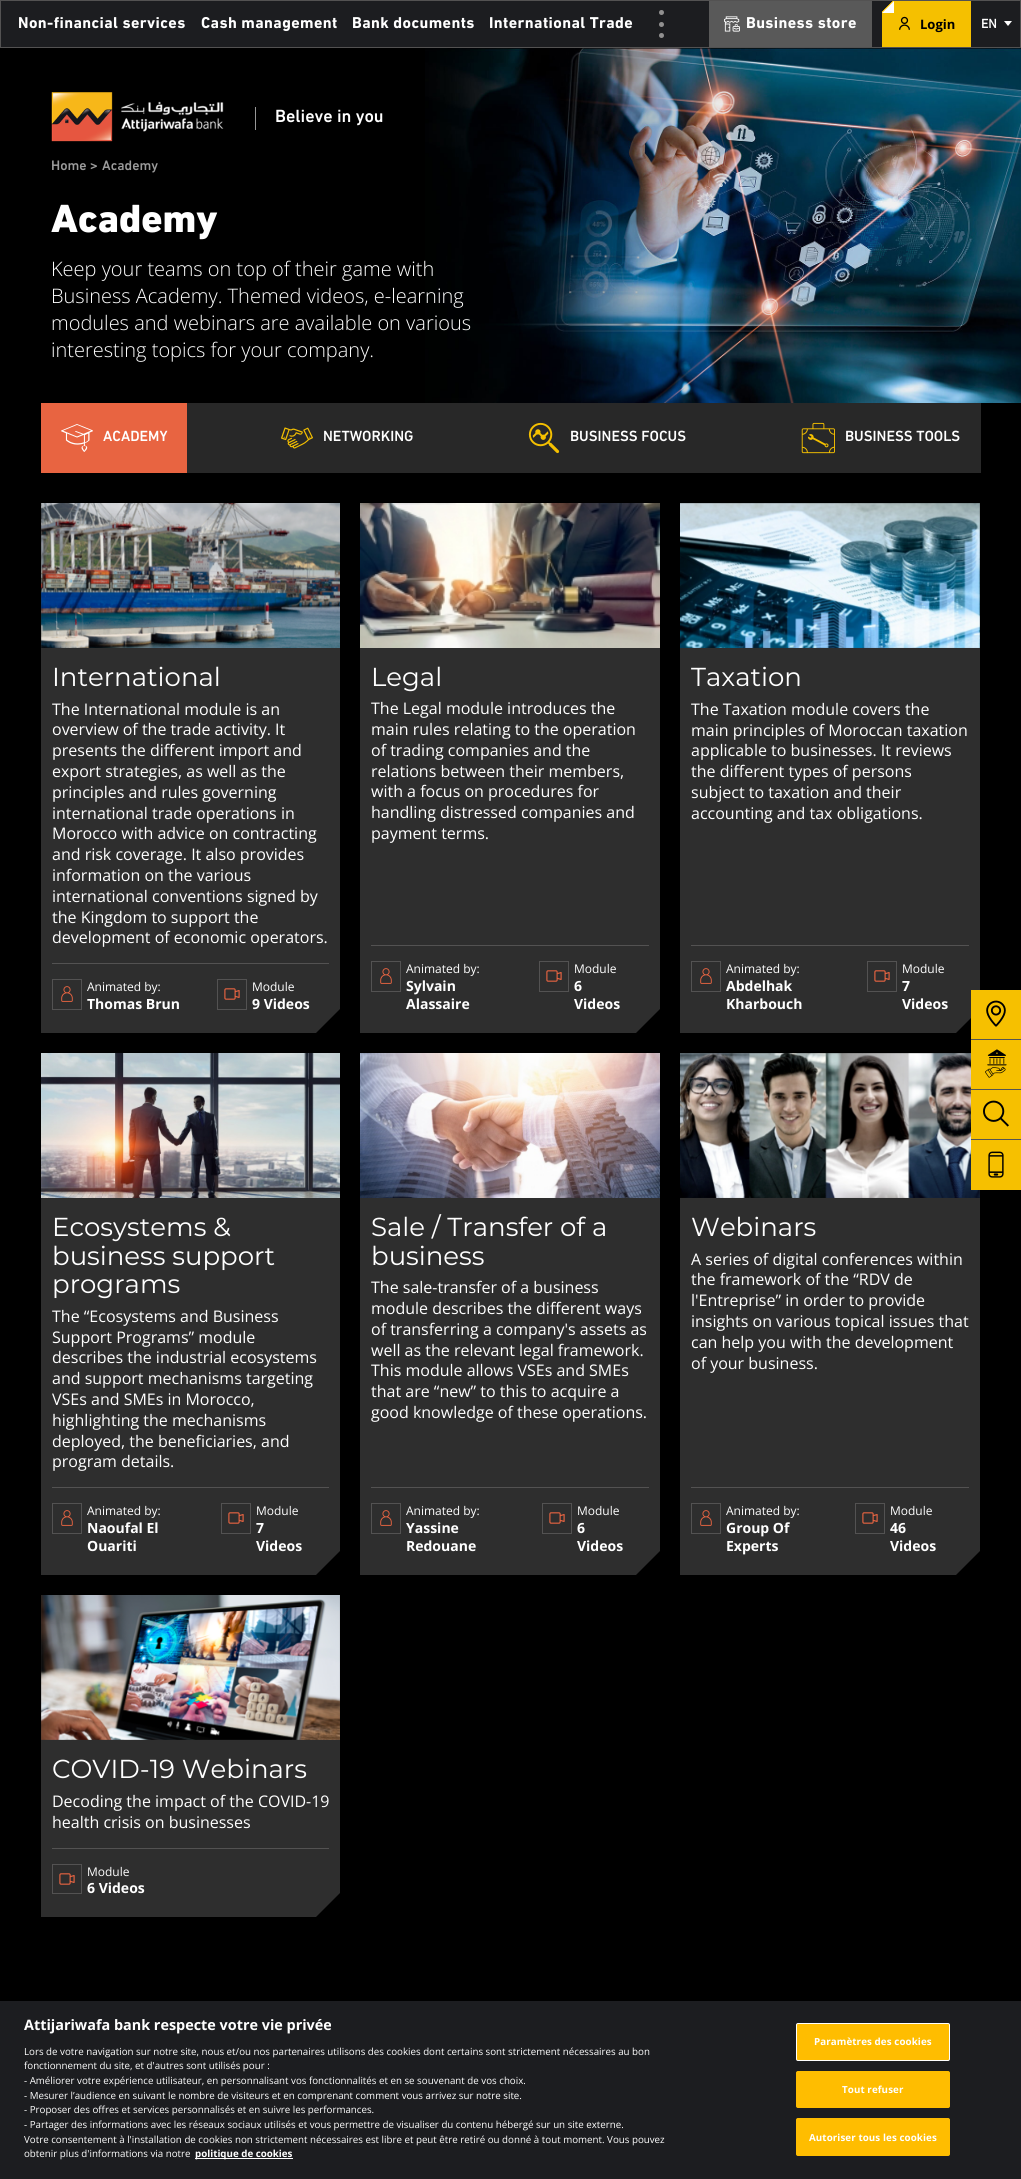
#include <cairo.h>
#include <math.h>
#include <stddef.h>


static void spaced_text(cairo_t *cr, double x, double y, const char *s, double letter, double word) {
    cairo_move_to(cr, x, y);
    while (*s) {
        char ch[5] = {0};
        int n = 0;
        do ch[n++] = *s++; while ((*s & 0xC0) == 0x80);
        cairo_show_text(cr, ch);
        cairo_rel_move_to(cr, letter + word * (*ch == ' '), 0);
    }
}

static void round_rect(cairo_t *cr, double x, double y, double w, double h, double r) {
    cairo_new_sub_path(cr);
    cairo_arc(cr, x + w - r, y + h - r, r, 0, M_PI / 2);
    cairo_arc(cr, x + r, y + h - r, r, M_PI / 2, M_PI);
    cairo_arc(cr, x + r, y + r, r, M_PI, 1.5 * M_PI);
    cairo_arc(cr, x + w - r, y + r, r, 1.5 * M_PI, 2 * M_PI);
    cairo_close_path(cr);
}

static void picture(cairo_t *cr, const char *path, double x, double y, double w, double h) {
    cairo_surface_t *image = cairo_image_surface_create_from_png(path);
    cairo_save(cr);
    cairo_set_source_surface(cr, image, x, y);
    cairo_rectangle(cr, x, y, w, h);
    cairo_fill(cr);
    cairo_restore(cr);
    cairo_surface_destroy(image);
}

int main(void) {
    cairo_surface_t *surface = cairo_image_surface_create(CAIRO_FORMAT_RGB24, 1021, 2179);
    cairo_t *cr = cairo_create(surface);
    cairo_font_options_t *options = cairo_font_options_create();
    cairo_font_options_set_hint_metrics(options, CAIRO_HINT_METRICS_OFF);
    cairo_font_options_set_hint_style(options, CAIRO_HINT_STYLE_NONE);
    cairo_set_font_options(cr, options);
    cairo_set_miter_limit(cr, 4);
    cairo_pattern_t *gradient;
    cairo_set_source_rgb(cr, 0, 0, 0);
    cairo_paint(cr);
    cairo_set_source_rgb(cr, 0.11, 0.114, 0.125);
    cairo_rectangle(cr, 0.5, 0.5, 1020, 47);
    cairo_fill_preserve(cr);
    cairo_set_source_rgb(cr, 0.325, 0.322, 0.322);
    cairo_set_line_width(cr, 1);
    cairo_stroke(cr);
    cairo_select_font_face(cr, "DIN Next", CAIRO_FONT_SLANT_NORMAL, CAIRO_FONT_WEIGHT_BOLD);
    cairo_set_font_size(cr, 16);
    cairo_set_source_rgb(cr, 1, 1, 1);
    spaced_text(cr, 18, 28, "Non-financial services", 0.4, 0);
    spaced_text(cr, 201, 28, "Cash management", 0.4, 0);
    spaced_text(cr, 352, 28, "Bank documents", 0.4, 0);
    spaced_text(cr, 489, 28, "International Trade", 0.4, 0);
    cairo_set_source_rgb(cr, 0.569, 0.565, 0.565);
    cairo_new_path(cr);
    cairo_arc(cr, 661.5, 12.5, 2.5, 0, 2 * M_PI);
    cairo_fill(cr);
    cairo_arc(cr, 661.5, 24.5, 2.5, 0, 2 * M_PI);
    cairo_fill(cr);
    cairo_arc(cr, 661.5, 35.5, 2.5, 0, 2 * M_PI);
    cairo_fill(cr);
    cairo_set_source_rgb(cr, 0.349, 0.349, 0.349);
    cairo_rectangle(cr, 709, 1, 163, 46);
    cairo_fill(cr);
    picture(cr, "img1.png", 724, 16, 16, 16);
    cairo_set_source_rgb(cr, 1, 1, 1);
    spaced_text(cr, 746, 28, "Business store", 0.4, 0);
    gradient = cairo_pattern_create_linear(893, -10, 960, 58);
    cairo_pattern_add_color_stop_rgba(gradient, 0, 0.11, 0.114, 0.125, 1);
    cairo_pattern_add_color_stop_rgba(gradient, 0.08, 0.11, 0.114, 0.125, 1);
    cairo_pattern_add_color_stop_rgba(gradient, 0.08, 0.961, 0.753, 0, 1);
    cairo_pattern_add_color_stop_rgba(gradient, 1, 0.961, 0.753, 0, 1);
    cairo_set_source(cr, gradient);
    cairo_pattern_destroy(gradient);
    cairo_rectangle(cr, 882, 1, 89, 46);
    cairo_fill(cr);
    cairo_set_source_rgb(cr, 1, 1, 1);
    cairo_new_path(cr);
    cairo_move_to(cr, 894, 13);
    cairo_line_to(cr, 882, 13);
    cairo_line_to(cr, 894, 1);
    cairo_close_path(cr);
    cairo_fill(cr);
    picture(cr, "img2.png", 899, 16, 11, 14);
    cairo_select_font_face(cr, "Open Sans", CAIRO_FONT_SLANT_NORMAL, CAIRO_FONT_WEIGHT_BOLD);
    cairo_set_font_size(cr, 13);
    cairo_set_source_rgb(cr, 0, 0, 0);
    cairo_move_to(cr, 920, 29);
    cairo_show_text(cr, "Login");
    cairo_select_font_face(cr, "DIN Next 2", CAIRO_FONT_SLANT_NORMAL, CAIRO_FONT_WEIGHT_BOLD);
    cairo_set_source_rgb(cr, 1, 1, 1);
    cairo_move_to(cr, 981, 28);
    cairo_show_text(cr, "EN");
    cairo_new_path(cr);
    cairo_move_to(cr, 1008, 26);
    cairo_line_to(cr, 1012, 21);
    cairo_line_to(cr, 1004, 21);
    cairo_close_path(cr);
    cairo_fill(cr);
    picture(cr, "img3.png", 51, 92, 173, 50);
    cairo_set_source_rgb(cr, 0.592, 0.592, 0.592);
    cairo_rectangle(cr, 255, 107, 1, 23);
    cairo_fill(cr);
    cairo_select_font_face(cr, "DIN Next Medium", CAIRO_FONT_SLANT_NORMAL, CAIRO_FONT_WEIGHT_NORMAL);
    cairo_set_font_size(cr, 18);
    cairo_set_source_rgb(cr, 1, 1, 1);
    cairo_move_to(cr, 275, 122);
    cairo_show_text(cr, "Believe in you");
    picture(cr, "img4.png", 425, 48, 596, 355);
    cairo_set_font_size(cr, 14);
    cairo_set_source_rgb(cr, 0.608, 0.608, 0.608);
    cairo_move_to(cr, 51, 170);
    cairo_show_text(cr, "Home");
    cairo_move_to(cr, 90, 170);
    cairo_show_text(cr, ">");
    cairo_move_to(cr, 102, 170);
    cairo_show_text(cr, "Academy");
    cairo_select_font_face(cr, "DIN Next Black", CAIRO_FONT_SLANT_NORMAL, CAIRO_FONT_WEIGHT_NORMAL);
    cairo_set_font_size(cr, 40);
    cairo_set_source_rgb(cr, 1, 1, 1);
    cairo_move_to(cr, 51, 232);
    cairo_show_text(cr, "Academy");
    cairo_select_font_face(cr, "Open Sans Light", CAIRO_FONT_SLANT_NORMAL, CAIRO_FONT_WEIGHT_NORMAL);
    cairo_set_font_size(cr, 20);
    cairo_move_to(cr, 51, 276);
    cairo_show_text(cr, "Keep your teams on top of their game with");
    cairo_move_to(cr, 51, 303);
    cairo_show_text(cr, "Business Academy. Themed videos, e-learning");
    cairo_move_to(cr, 51, 330);
    cairo_show_text(cr, "modules and webinars are available on various");
    cairo_move_to(cr, 51, 357);
    cairo_show_text(cr, "interesting topics for your company.");
    cairo_set_source_rgb(cr, 0.157, 0.157, 0.157);
    cairo_rectangle(cr, 187, 403, 794, 70);
    cairo_fill(cr);
    cairo_set_source_rgb(cr, 0.91, 0.392, 0.255);
    cairo_rectangle(cr, 41, 403, 146, 70);
    cairo_fill(cr);
    picture(cr, "img5.png", 61, 424, 32, 28);
    cairo_select_font_face(cr, "DIN Next Medium", CAIRO_FONT_SLANT_NORMAL, CAIRO_FONT_WEIGHT_NORMAL);
    cairo_set_font_size(cr, 15);
    cairo_set_source_rgb(cr, 1, 1, 1);
    cairo_move_to(cr, 103, 441);
    cairo_show_text(cr, "ACADEMY");
    picture(cr, "img6.png", 281, 427, 32, 22);
    cairo_move_to(cr, 323, 441);
    cairo_show_text(cr, "NETWORKING");
    picture(cr, "img7.png", 528, 422, 32, 32);
    cairo_move_to(cr, 570, 441);
    cairo_show_text(cr, "BUSINESS FOCUS");
    picture(cr, "img8.png", 801, 422, 34, 32);
    cairo_move_to(cr, 845, 441);
    cairo_show_text(cr, "BUSINESS TOOLS");
    cairo_set_source_rgb(cr, 0.18, 0.18, 0.18);
    cairo_rectangle(cr, 41, 503, 299, 530);
    cairo_fill(cr);
    picture(cr, "img9.png", 41, 503, 299, 145);
    cairo_select_font_face(cr, "Montserrat", CAIRO_FONT_SLANT_NORMAL, CAIRO_FONT_WEIGHT_NORMAL);
    cairo_set_font_size(cr, 26);
    cairo_set_source_rgb(cr, 1, 1, 1);
    cairo_move_to(cr, 52, 686);
    cairo_show_text(cr, "International");
    cairo_select_font_face(cr, "Open Sans", CAIRO_FONT_SLANT_NORMAL, CAIRO_FONT_WEIGHT_NORMAL);
    cairo_set_font_size(cr, 16);
    cairo_move_to(cr, 52, 715);
    cairo_show_text(cr, "The International module is an");
    cairo_move_to(cr, 52, 735);
    cairo_show_text(cr, "overview of the trade activity. It");
    cairo_move_to(cr, 52, 756);
    cairo_show_text(cr, "presents the different import and");
    cairo_move_to(cr, 52, 777);
    cairo_show_text(cr, "export strategies, as well as the");
    cairo_move_to(cr, 52, 798);
    cairo_show_text(cr, "principles and rules governing");
    cairo_move_to(cr, 52, 819);
    cairo_show_text(cr, "international trade operations in");
    cairo_move_to(cr, 52, 839);
    cairo_show_text(cr, "Morocco with advice on contracting");
    cairo_move_to(cr, 52, 860);
    cairo_show_text(cr, "and risk coverage. It also provides");
    cairo_move_to(cr, 52, 881);
    cairo_show_text(cr, "information on the various");
    cairo_move_to(cr, 52, 902);
    cairo_show_text(cr, "international conventions signed by");
    cairo_move_to(cr, 52, 923);
    cairo_show_text(cr, "the Kingdom to support the");
    cairo_move_to(cr, 52, 943);
    cairo_show_text(cr, "development of economic operators.");
    cairo_set_source_rgb(cr, 0.325, 0.322, 0.322);
    cairo_rectangle(cr, 52, 963, 277, 1);
    cairo_fill(cr);
    cairo_rectangle(cr, 52.5, 979.5, 29, 30);
    cairo_stroke(cr);
    picture(cr, "img10.png", 61, 986, 12, 16);
    cairo_set_font_size(cr, 12);
    cairo_set_source_rgb(cr, 1, 1, 1);
    cairo_move_to(cr, 87, 991);
    cairo_show_text(cr, "Animated by:");
    cairo_select_font_face(cr, "Open Sans", CAIRO_FONT_SLANT_NORMAL, CAIRO_FONT_WEIGHT_BOLD);
    cairo_set_font_size(cr, 14);
    cairo_move_to(cr, 87, 1009);
    cairo_show_text(cr, "Thomas Brun");
    cairo_rectangle(cr, 217.5, 979.5, 29, 30);
    cairo_set_source_rgb(cr, 0.325, 0.322, 0.322);
    cairo_stroke(cr);
    picture(cr, "img11.png", 224, 988, 16, 12);
    cairo_select_font_face(cr, "Open Sans", CAIRO_FONT_SLANT_NORMAL, CAIRO_FONT_WEIGHT_NORMAL);
    cairo_set_font_size(cr, 12);
    cairo_set_source_rgb(cr, 1, 1, 1);
    cairo_move_to(cr, 252, 991);
    cairo_show_text(cr, "Module");
    cairo_select_font_face(cr, "Open Sans", CAIRO_FONT_SLANT_NORMAL, CAIRO_FONT_WEIGHT_BOLD);
    cairo_set_font_size(cr, 14);
    cairo_move_to(cr, 252, 1009);
    cairo_show_text(cr, "9 Videos");
    cairo_save(cr);
    cairo_rectangle(cr, 41, 503, 299, 530);
    cairo_clip(cr);
    cairo_set_source_rgb(cr, 0, 0, 0);
    cairo_new_path(cr);
    cairo_move_to(cr, 344, 1005);
    cairo_line_to(cr, 373, 1033);
    cairo_line_to(cr, 344, 1061);
    cairo_line_to(cr, 316, 1033);
    cairo_close_path(cr);
    cairo_fill(cr);
    cairo_restore(cr);
    cairo_set_source_rgb(cr, 0.18, 0.18, 0.18);
    cairo_rectangle(cr, 360, 648, 300, 385);
    cairo_fill(cr);
    picture(cr, "img12.png", 360, 503, 300, 145);
    cairo_select_font_face(cr, "Montserrat", CAIRO_FONT_SLANT_NORMAL, CAIRO_FONT_WEIGHT_NORMAL);
    cairo_set_font_size(cr, 26);
    cairo_set_source_rgb(cr, 1, 1, 1);
    cairo_move_to(cr, 371, 686);
    cairo_show_text(cr, "Legal");
    cairo_select_font_face(cr, "Open Sans", CAIRO_FONT_SLANT_NORMAL, CAIRO_FONT_WEIGHT_NORMAL);
    cairo_set_font_size(cr, 16);
    cairo_move_to(cr, 371, 714);
    cairo_show_text(cr, "The Legal module introduces the");
    cairo_move_to(cr, 371, 735);
    cairo_show_text(cr, "main rules relating to the operation");
    cairo_move_to(cr, 371, 756);
    cairo_show_text(cr, "of trading companies and the");
    cairo_move_to(cr, 371, 777);
    cairo_show_text(cr, "relations between their members,");
    cairo_move_to(cr, 371, 797);
    cairo_show_text(cr, "with a focus on procedures for");
    cairo_move_to(cr, 371, 818);
    cairo_show_text(cr, "handling distressed companies and");
    cairo_move_to(cr, 371, 839);
    cairo_show_text(cr, "payment terms.");
    cairo_set_source_rgb(cr, 0.325, 0.322, 0.322);
    cairo_rectangle(cr, 371, 945, 278, 1);
    cairo_fill(cr);
    cairo_rectangle(cr, 371.5, 961.5, 29, 30);
    cairo_stroke(cr);
    picture(cr, "img10.png", 380, 968, 12, 16);
    cairo_set_font_size(cr, 12);
    cairo_set_source_rgb(cr, 1, 1, 1);
    cairo_move_to(cr, 406, 973);
    cairo_show_text(cr, "Animated by:");
    cairo_select_font_face(cr, "Open Sans", CAIRO_FONT_SLANT_NORMAL, CAIRO_FONT_WEIGHT_BOLD);
    cairo_set_font_size(cr, 14);
    cairo_move_to(cr, 406, 991);
    cairo_show_text(cr, "Sylvain");
    cairo_move_to(cr, 406, 1009);
    cairo_show_text(cr, "Alassaire");
    cairo_rectangle(cr, 539.5, 961.5, 29, 30);
    cairo_set_source_rgb(cr, 0.325, 0.322, 0.322);
    cairo_stroke(cr);
    picture(cr, "img11.png", 546, 970, 16, 12);
    cairo_select_font_face(cr, "Open Sans", CAIRO_FONT_SLANT_NORMAL, CAIRO_FONT_WEIGHT_NORMAL);
    cairo_set_font_size(cr, 12);
    cairo_set_source_rgb(cr, 1, 1, 1);
    cairo_move_to(cr, 574, 973);
    cairo_show_text(cr, "Module");
    cairo_select_font_face(cr, "Open Sans", CAIRO_FONT_SLANT_NORMAL, CAIRO_FONT_WEIGHT_BOLD);
    cairo_set_font_size(cr, 14);
    cairo_move_to(cr, 574, 991);
    cairo_show_text(cr, "6");
    cairo_move_to(cr, 574, 1009);
    cairo_show_text(cr, "Videos");
    cairo_save(cr);
    cairo_rectangle(cr, 360, 503, 300, 530);
    cairo_clip(cr);
    cairo_set_source_rgb(cr, 0, 0, 0);
    cairo_new_path(cr);
    cairo_move_to(cr, 664, 1005);
    cairo_line_to(cr, 693, 1033);
    cairo_line_to(cr, 664, 1061);
    cairo_line_to(cr, 636, 1033);
    cairo_close_path(cr);
    cairo_fill(cr);
    cairo_restore(cr);
    cairo_set_source_rgb(cr, 0.18, 0.18, 0.18);
    cairo_rectangle(cr, 680, 503, 300, 530);
    cairo_fill(cr);
    picture(cr, "img13.png", 680, 503, 300, 145);
    cairo_select_font_face(cr, "Montserrat", CAIRO_FONT_SLANT_NORMAL, CAIRO_FONT_WEIGHT_NORMAL);
    cairo_set_font_size(cr, 26);
    cairo_set_source_rgb(cr, 1, 1, 1);
    cairo_move_to(cr, 691, 686);
    cairo_show_text(cr, "Taxation");
    cairo_select_font_face(cr, "Open Sans", CAIRO_FONT_SLANT_NORMAL, CAIRO_FONT_WEIGHT_NORMAL);
    cairo_set_font_size(cr, 16);
    cairo_move_to(cr, 691, 715);
    cairo_show_text(cr, "The Taxation module covers the");
    cairo_move_to(cr, 691, 736);
    cairo_show_text(cr, "main principles of Moroccan taxation");
    cairo_move_to(cr, 691, 756);
    cairo_show_text(cr, "applicable to businesses. It reviews");
    cairo_move_to(cr, 691, 777);
    cairo_show_text(cr, "the different types of persons");
    cairo_move_to(cr, 691, 798);
    cairo_show_text(cr, "subject to taxation and their");
    cairo_move_to(cr, 691, 819);
    cairo_show_text(cr, "accounting and tax obligations.");
    cairo_set_source_rgb(cr, 0.325, 0.322, 0.322);
    cairo_rectangle(cr, 691, 945, 278, 1);
    cairo_fill(cr);
    cairo_rectangle(cr, 691.5, 961.5, 29, 30);
    cairo_stroke(cr);
    picture(cr, "img10.png", 700, 968, 12, 16);
    cairo_set_font_size(cr, 12);
    cairo_set_source_rgb(cr, 1, 1, 1);
    cairo_move_to(cr, 726, 973);
    cairo_show_text(cr, "Animated by:");
    cairo_select_font_face(cr, "Open Sans", CAIRO_FONT_SLANT_NORMAL, CAIRO_FONT_WEIGHT_BOLD);
    cairo_set_font_size(cr, 14);
    cairo_move_to(cr, 726, 991);
    cairo_show_text(cr, "Abdelhak");
    cairo_move_to(cr, 726, 1009);
    cairo_show_text(cr, "Kharbouch");
    cairo_rectangle(cr, 867.5, 961.5, 29, 30);
    cairo_set_source_rgb(cr, 0.325, 0.322, 0.322);
    cairo_stroke(cr);
    picture(cr, "img11.png", 874, 970, 16, 12);
    cairo_select_font_face(cr, "Open Sans", CAIRO_FONT_SLANT_NORMAL, CAIRO_FONT_WEIGHT_NORMAL);
    cairo_set_font_size(cr, 12);
    cairo_set_source_rgb(cr, 1, 1, 1);
    cairo_move_to(cr, 902, 973);
    cairo_show_text(cr, "Module");
    cairo_select_font_face(cr, "Open Sans", CAIRO_FONT_SLANT_NORMAL, CAIRO_FONT_WEIGHT_BOLD);
    cairo_set_font_size(cr, 14);
    cairo_move_to(cr, 902, 991);
    cairo_show_text(cr, "7");
    cairo_move_to(cr, 902, 1009);
    cairo_show_text(cr, "Videos");
    cairo_save(cr);
    cairo_rectangle(cr, 680, 503, 300, 530);
    cairo_clip(cr);
    cairo_set_source_rgb(cr, 0, 0, 0);
    cairo_new_path(cr);
    cairo_move_to(cr, 984, 1005);
    cairo_line_to(cr, 1013, 1033);
    cairo_line_to(cr, 984, 1061);
    cairo_line_to(cr, 956, 1033);
    cairo_close_path(cr);
    cairo_fill(cr);
    cairo_restore(cr);
    cairo_set_source_rgb(cr, 0.18, 0.18, 0.18);
    cairo_rectangle(cr, 41, 1198, 299, 377);
    cairo_fill(cr);
    picture(cr, "img14.png", 41, 1053, 299, 145);
    cairo_select_font_face(cr, "Montserrat", CAIRO_FONT_SLANT_NORMAL, CAIRO_FONT_WEIGHT_NORMAL);
    cairo_set_font_size(cr, 26);
    cairo_set_source_rgb(cr, 1, 1, 1);
    cairo_move_to(cr, 52, 1236);
    cairo_show_text(cr, "Ecosystems &");
    cairo_move_to(cr, 52, 1265);
    cairo_show_text(cr, "business support");
    cairo_move_to(cr, 52, 1293);
    cairo_show_text(cr, "programs");
    cairo_select_font_face(cr, "Open Sans", CAIRO_FONT_SLANT_NORMAL, CAIRO_FONT_WEIGHT_NORMAL);
    cairo_set_font_size(cr, 16);
    cairo_move_to(cr, 52, 1322);
    cairo_show_text(cr, "The “Ecosystems and Business");
    cairo_move_to(cr, 52, 1343);
    cairo_show_text(cr, "Support Programs” module");
    cairo_move_to(cr, 52, 1363);
    cairo_show_text(cr, "describes the industrial ecosystems");
    cairo_move_to(cr, 52, 1384);
    cairo_show_text(cr, "and support mechanisms targeting");
    cairo_move_to(cr, 52, 1405);
    cairo_show_text(cr, "VSEs and SMEs in Morocco,");
    cairo_move_to(cr, 52, 1426);
    cairo_show_text(cr, "highlighting the mechanisms");
    cairo_move_to(cr, 52, 1447);
    cairo_show_text(cr, "deployed, the beneficiaries, and");
    cairo_move_to(cr, 52, 1467);
    cairo_show_text(cr, "program details.");
    cairo_set_source_rgb(cr, 0.325, 0.322, 0.322);
    cairo_rectangle(cr, 52, 1487, 277, 1);
    cairo_fill(cr);
    cairo_rectangle(cr, 52.5, 1503.5, 29, 30);
    cairo_stroke(cr);
    picture(cr, "img10.png", 61, 1510, 12, 16);
    cairo_set_font_size(cr, 12);
    cairo_set_source_rgb(cr, 1, 1, 1);
    cairo_move_to(cr, 87, 1515);
    cairo_show_text(cr, "Animated by:");
    cairo_select_font_face(cr, "Open Sans", CAIRO_FONT_SLANT_NORMAL, CAIRO_FONT_WEIGHT_BOLD);
    cairo_set_font_size(cr, 14);
    cairo_move_to(cr, 87, 1533);
    cairo_show_text(cr, "Naoufal El");
    cairo_move_to(cr, 87, 1551);
    cairo_show_text(cr, "Ouariti");
    cairo_rectangle(cr, 221.5, 1503.5, 29, 30);
    cairo_set_source_rgb(cr, 0.325, 0.322, 0.322);
    cairo_stroke(cr);
    picture(cr, "img11.png", 228, 1512, 16, 12);
    cairo_select_font_face(cr, "Open Sans", CAIRO_FONT_SLANT_NORMAL, CAIRO_FONT_WEIGHT_NORMAL);
    cairo_set_font_size(cr, 12);
    cairo_set_source_rgb(cr, 1, 1, 1);
    cairo_move_to(cr, 256, 1515);
    cairo_show_text(cr, "Module");
    cairo_select_font_face(cr, "Open Sans", CAIRO_FONT_SLANT_NORMAL, CAIRO_FONT_WEIGHT_BOLD);
    cairo_set_font_size(cr, 14);
    cairo_move_to(cr, 256, 1533);
    cairo_show_text(cr, "7");
    cairo_move_to(cr, 256, 1551);
    cairo_show_text(cr, "Videos");
    cairo_save(cr);
    cairo_rectangle(cr, 41, 1053, 299, 522);
    cairo_clip(cr);
    cairo_set_source_rgb(cr, 0, 0, 0);
    cairo_new_path(cr);
    cairo_move_to(cr, 344, 1547);
    cairo_line_to(cr, 373, 1575);
    cairo_line_to(cr, 344, 1603);
    cairo_line_to(cr, 316, 1575);
    cairo_close_path(cr);
    cairo_fill(cr);
    cairo_restore(cr);
    cairo_set_source_rgb(cr, 0.18, 0.18, 0.18);
    cairo_rectangle(cr, 360, 1198, 300, 377);
    cairo_fill(cr);
    picture(cr, "img15.png", 360, 1053, 300, 145);
    cairo_select_font_face(cr, "Montserrat", CAIRO_FONT_SLANT_NORMAL, CAIRO_FONT_WEIGHT_NORMAL);
    cairo_set_font_size(cr, 26);
    cairo_set_source_rgb(cr, 1, 1, 1);
    cairo_move_to(cr, 371, 1236);
    cairo_show_text(cr, "Sale / Transfer of a");
    cairo_move_to(cr, 371, 1265);
    cairo_show_text(cr, "business");
    cairo_select_font_face(cr, "Open Sans", CAIRO_FONT_SLANT_NORMAL, CAIRO_FONT_WEIGHT_NORMAL);
    cairo_set_font_size(cr, 16);
    cairo_move_to(cr, 371, 1293);
    cairo_show_text(cr, "The sale-transfer of a business");
    cairo_move_to(cr, 371, 1314);
    cairo_show_text(cr, "module describes the different ways");
    cairo_move_to(cr, 371, 1335);
    cairo_show_text(cr, "of transferring a company's assets as");
    cairo_move_to(cr, 371, 1356);
    cairo_show_text(cr, "well as the relevant legal framework.");
    cairo_move_to(cr, 371, 1376);
    cairo_show_text(cr, "This module allows VSEs and SMEs");
    cairo_move_to(cr, 371, 1397);
    cairo_show_text(cr, "that are “new” to this to acquire a");
    cairo_move_to(cr, 371, 1418);
    cairo_show_text(cr, "good knowledge of these operations.");
    cairo_set_source_rgb(cr, 0.325, 0.322, 0.322);
    cairo_rectangle(cr, 371, 1487, 278, 1);
    cairo_fill(cr);
    cairo_rectangle(cr, 371.5, 1503.5, 29, 30);
    cairo_stroke(cr);
    picture(cr, "img10.png", 380, 1510, 12, 16);
    cairo_set_font_size(cr, 12);
    cairo_set_source_rgb(cr, 1, 1, 1);
    cairo_move_to(cr, 406, 1515);
    cairo_show_text(cr, "Animated by:");
    cairo_select_font_face(cr, "Open Sans", CAIRO_FONT_SLANT_NORMAL, CAIRO_FONT_WEIGHT_BOLD);
    cairo_set_font_size(cr, 14);
    cairo_move_to(cr, 406, 1533);
    cairo_show_text(cr, "Yassine");
    cairo_move_to(cr, 406, 1551);
    cairo_show_text(cr, "Redouane");
    cairo_rectangle(cr, 542.5, 1503.5, 29, 30);
    cairo_set_source_rgb(cr, 0.325, 0.322, 0.322);
    cairo_stroke(cr);
    picture(cr, "img11.png", 549, 1512, 16, 12);
    cairo_select_font_face(cr, "Open Sans", CAIRO_FONT_SLANT_NORMAL, CAIRO_FONT_WEIGHT_NORMAL);
    cairo_set_font_size(cr, 12);
    cairo_set_source_rgb(cr, 1, 1, 1);
    cairo_move_to(cr, 577, 1515);
    cairo_show_text(cr, "Module");
    cairo_select_font_face(cr, "Open Sans", CAIRO_FONT_SLANT_NORMAL, CAIRO_FONT_WEIGHT_BOLD);
    cairo_set_font_size(cr, 14);
    cairo_move_to(cr, 577, 1533);
    cairo_show_text(cr, "6");
    cairo_move_to(cr, 577, 1551);
    cairo_show_text(cr, "Videos");
    cairo_save(cr);
    cairo_rectangle(cr, 360, 1053, 300, 522);
    cairo_clip(cr);
    cairo_set_source_rgb(cr, 0, 0, 0);
    cairo_new_path(cr);
    cairo_move_to(cr, 664, 1547);
    cairo_line_to(cr, 693, 1575);
    cairo_line_to(cr, 664, 1603);
    cairo_line_to(cr, 636, 1575);
    cairo_close_path(cr);
    cairo_fill(cr);
    cairo_restore(cr);
    cairo_set_source_rgb(cr, 0.18, 0.18, 0.18);
    cairo_rectangle(cr, 680, 1053, 300, 522);
    cairo_fill(cr);
    picture(cr, "img16.png", 680, 1053, 300, 145);
    cairo_select_font_face(cr, "Montserrat", CAIRO_FONT_SLANT_NORMAL, CAIRO_FONT_WEIGHT_NORMAL);
    cairo_set_font_size(cr, 26);
    cairo_set_source_rgb(cr, 1, 1, 1);
    cairo_move_to(cr, 691, 1236);
    cairo_show_text(cr, "Webinars");
    cairo_select_font_face(cr, "Open Sans", CAIRO_FONT_SLANT_NORMAL, CAIRO_FONT_WEIGHT_NORMAL);
    cairo_set_font_size(cr, 16);
    cairo_move_to(cr, 691, 1265);
    cairo_show_text(cr, "A series of digital conferences within");
    cairo_move_to(cr, 691, 1285);
    cairo_show_text(cr, "the framework of the “RDV de");
    cairo_move_to(cr, 691, 1306);
    cairo_show_text(cr, "l'Entreprise” in order to provide");
    cairo_move_to(cr, 691, 1327);
    cairo_show_text(cr, "insights on various topical issues that");
    cairo_move_to(cr, 691, 1348);
    cairo_show_text(cr, "can help you with the development");
    cairo_move_to(cr, 691, 1369);
    cairo_show_text(cr, "of your business.");
    cairo_set_source_rgb(cr, 0.325, 0.322, 0.322);
    cairo_rectangle(cr, 691, 1487, 278, 1);
    cairo_fill(cr);
    cairo_rectangle(cr, 691.5, 1503.5, 29, 30);
    cairo_stroke(cr);
    picture(cr, "img10.png", 700, 1510, 12, 16);
    cairo_set_font_size(cr, 12);
    cairo_set_source_rgb(cr, 1, 1, 1);
    cairo_move_to(cr, 726, 1515);
    cairo_show_text(cr, "Animated by:");
    cairo_select_font_face(cr, "Open Sans", CAIRO_FONT_SLANT_NORMAL, CAIRO_FONT_WEIGHT_BOLD);
    cairo_set_font_size(cr, 14);
    cairo_move_to(cr, 726, 1533);
    cairo_show_text(cr, "Group Of");
    cairo_move_to(cr, 726, 1551);
    cairo_show_text(cr, "Experts");
    cairo_rectangle(cr, 855.5, 1503.5, 29, 30);
    cairo_set_source_rgb(cr, 0.325, 0.322, 0.322);
    cairo_stroke(cr);
    picture(cr, "img11.png", 862, 1512, 16, 12);
    cairo_select_font_face(cr, "Open Sans", CAIRO_FONT_SLANT_NORMAL, CAIRO_FONT_WEIGHT_NORMAL);
    cairo_set_font_size(cr, 12);
    cairo_set_source_rgb(cr, 1, 1, 1);
    cairo_move_to(cr, 890, 1515);
    cairo_show_text(cr, "Module");
    cairo_select_font_face(cr, "Open Sans", CAIRO_FONT_SLANT_NORMAL, CAIRO_FONT_WEIGHT_BOLD);
    cairo_set_font_size(cr, 14);
    cairo_move_to(cr, 890, 1533);
    cairo_show_text(cr, "46");
    cairo_move_to(cr, 890, 1551);
    cairo_show_text(cr, "Videos");
    cairo_save(cr);
    cairo_rectangle(cr, 680, 1053, 300, 522);
    cairo_clip(cr);
    cairo_set_source_rgb(cr, 0, 0, 0);
    cairo_new_path(cr);
    cairo_move_to(cr, 984, 1547);
    cairo_line_to(cr, 1013, 1575);
    cairo_line_to(cr, 984, 1603);
    cairo_line_to(cr, 956, 1575);
    cairo_close_path(cr);
    cairo_fill(cr);
    cairo_restore(cr);
    cairo_set_source_rgb(cr, 0.18, 0.18, 0.18);
    cairo_rectangle(cr, 41, 1595, 299, 322);
    cairo_fill(cr);
    picture(cr, "img17.png", 41, 1595, 299, 145);
    cairo_select_font_face(cr, "Montserrat", CAIRO_FONT_SLANT_NORMAL, CAIRO_FONT_WEIGHT_NORMAL);
    cairo_set_font_size(cr, 26);
    cairo_set_source_rgb(cr, 1, 1, 1);
    cairo_move_to(cr, 52, 1778);
    cairo_show_text(cr, "COVID-19 Webinars");
    cairo_select_font_face(cr, "Open Sans", CAIRO_FONT_SLANT_NORMAL, CAIRO_FONT_WEIGHT_NORMAL);
    cairo_set_font_size(cr, 16);
    cairo_move_to(cr, 52, 1807);
    cairo_show_text(cr, "Decoding the impact of the COVID-19");
    cairo_move_to(cr, 52, 1828);
    cairo_show_text(cr, "health crisis on businesses");
    cairo_set_source_rgb(cr, 0.325, 0.322, 0.322);
    cairo_rectangle(cr, 52, 1848, 277, 1);
    cairo_fill(cr);
    cairo_rectangle(cr, 52.5, 1864.5, 29, 29);
    cairo_stroke(cr);
    picture(cr, "img11.png", 59, 1873, 16, 12);
    cairo_set_font_size(cr, 12);
    cairo_set_source_rgb(cr, 1, 1, 1);
    cairo_move_to(cr, 87, 1876);
    cairo_show_text(cr, "Module");
    cairo_select_font_face(cr, "Open Sans", CAIRO_FONT_SLANT_NORMAL, CAIRO_FONT_WEIGHT_BOLD);
    cairo_set_font_size(cr, 14);
    cairo_move_to(cr, 87, 1893);
    cairo_show_text(cr, "6 Videos");
    cairo_save(cr);
    cairo_rectangle(cr, 41, 1595, 299, 322);
    cairo_clip(cr);
    cairo_set_source_rgb(cr, 0, 0, 0);
    cairo_new_path(cr);
    cairo_move_to(cr, 344, 1889);
    cairo_line_to(cr, 373, 1917);
    cairo_line_to(cr, 344, 1946);
    cairo_line_to(cr, 316, 1917);
    cairo_close_path(cr);
    cairo_fill(cr);
    cairo_restore(cr);
    cairo_set_source_rgb(cr, 0.329, 0.329, 0.329);
    cairo_rectangle(cr, 971, 1039, 50, 1);
    cairo_fill(cr);
    cairo_set_source_rgb(cr, 0.961, 0.753, 0);
    cairo_rectangle(cr, 971, 990, 50, 49);
    cairo_fill(cr);
    picture(cr, "img18.png", 986, 1000, 20, 27);
    cairo_set_source_rgb(cr, 0.329, 0.329, 0.329);
    cairo_rectangle(cr, 971, 1089, 50, 1);
    cairo_fill(cr);
    cairo_set_source_rgb(cr, 0.961, 0.753, 0);
    cairo_rectangle(cr, 971, 1040, 50, 49);
    cairo_fill(cr);
    picture(cr, "img19.png", 985, 1049, 22, 29);
    cairo_set_source_rgb(cr, 0.329, 0.329, 0.329);
    cairo_rectangle(cr, 971, 1139, 50, 1);
    cairo_fill(cr);
    cairo_set_source_rgb(cr, 0.961, 0.753, 0);
    cairo_rectangle(cr, 971, 1090, 50, 49);
    cairo_fill(cr);
    picture(cr, "img20.png", 983, 1100, 26, 27);
    cairo_rectangle(cr, 971, 1140, 50, 50);
    cairo_fill(cr);
    picture(cr, "img21.png", 988, 1151, 16, 27);
    cairo_set_source_rgb(cr, 0.11, 0.114, 0.125);
    cairo_rectangle(cr, 0, 2001, 1021, 178);
    cairo_fill(cr);
    cairo_set_font_size(cr, 14.4);
    cairo_set_source_rgb(cr, 1, 1, 1);
    cairo_move_to(cr, 24, 2030);
    cairo_show_text(cr, "Attijariwafa bank respecte votre vie privée");
    cairo_select_font_face(cr, "Open Sans", CAIRO_FONT_SLANT_NORMAL, CAIRO_FONT_WEIGHT_NORMAL);
    cairo_set_font_size(cr, 9.75);
    cairo_move_to(cr, 24, 2055);
    cairo_show_text(cr, "Lors de votre navigation sur notre site, nous et/ou nos partenaires utilisons des cookies dont certains sont strictement nécessaires au bon");
    cairo_move_to(cr, 24, 2069);
    cairo_show_text(cr, "fonctionnement du site, et d'autres sont utilisés pour :");
    cairo_move_to(cr, 24, 2084);
    cairo_show_text(cr, "- Améliorer votre expérience utilisateur, en personnalisant vos fonctionnalités et en se souvenant de vos choix.");
    cairo_move_to(cr, 24, 2099);
    cairo_show_text(cr, "- Mesurer l’audience en suivant le nombre de visiteurs et en comprenant comment vous arrivez sur notre site.");
    cairo_move_to(cr, 24, 2113);
    cairo_show_text(cr, "- Proposer des offres et services personnalisés et en suivre les performances.");
    cairo_move_to(cr, 24, 2128);
    cairo_show_text(cr, "- Partager des informations avec les réseaux sociaux utilisés et vous permettre de visualiser du contenu hébergé sur un site externe.");
    cairo_move_to(cr, 24, 2143);
    cairo_show_text(cr, "Votre consentement à l'installation de cookies non strictement nécessaires est libre et peut être retiré ou donné à tout moment. Vous pouvez");
    cairo_move_to(cr, 24, 2157);
    cairo_show_text(cr, "obtenir plus d'informations via notre");
    cairo_rectangle(cr, 195, 2158, 98, 1);
    cairo_fill(cr);
    cairo_select_font_face(cr, "Open Sans", CAIRO_FONT_SLANT_NORMAL, CAIRO_FONT_WEIGHT_BOLD);
    cairo_move_to(cr, 195, 2157);
    cairo_show_text(cr, "politique de cookies");
    cairo_set_source_rgb(cr, 1, 0.741, 0);
    round_rect(cr, 796.5, 2023.5, 153, 37, 1.5);
    cairo_fill_preserve(cr);
    cairo_set_source_rgb(cr, 1, 1, 1);
    cairo_stroke(cr);
    spaced_text(cr, 814, 2045, "Paramètres des cookies", 0.1, 0);
    cairo_set_source_rgb(cr, 1, 0.741, 0);
    round_rect(cr, 796.5, 2071.5, 153, 36, 1.5);
    cairo_fill_preserve(cr);
    cairo_stroke(cr);
    cairo_set_source_rgb(cr, 1, 1, 1);
    spaced_text(cr, 842, 2093, "Tout refuser", 0.1, 0);
    cairo_set_source_rgb(cr, 1, 0.741, 0);
    round_rect(cr, 796.5, 2118.5, 153, 37, 1.5);
    cairo_fill_preserve(cr);
    cairo_stroke(cr);
    cairo_set_source_rgb(cr, 1, 1, 1);
    spaced_text(cr, 809, 2141, "Autoriser tous les cookies", 0.1, 0);
    cairo_surface_write_to_png(surface, "page.png");
    cairo_font_options_destroy(options);
    cairo_destroy(cr);
    cairo_surface_destroy(surface);
    return 0;
}
